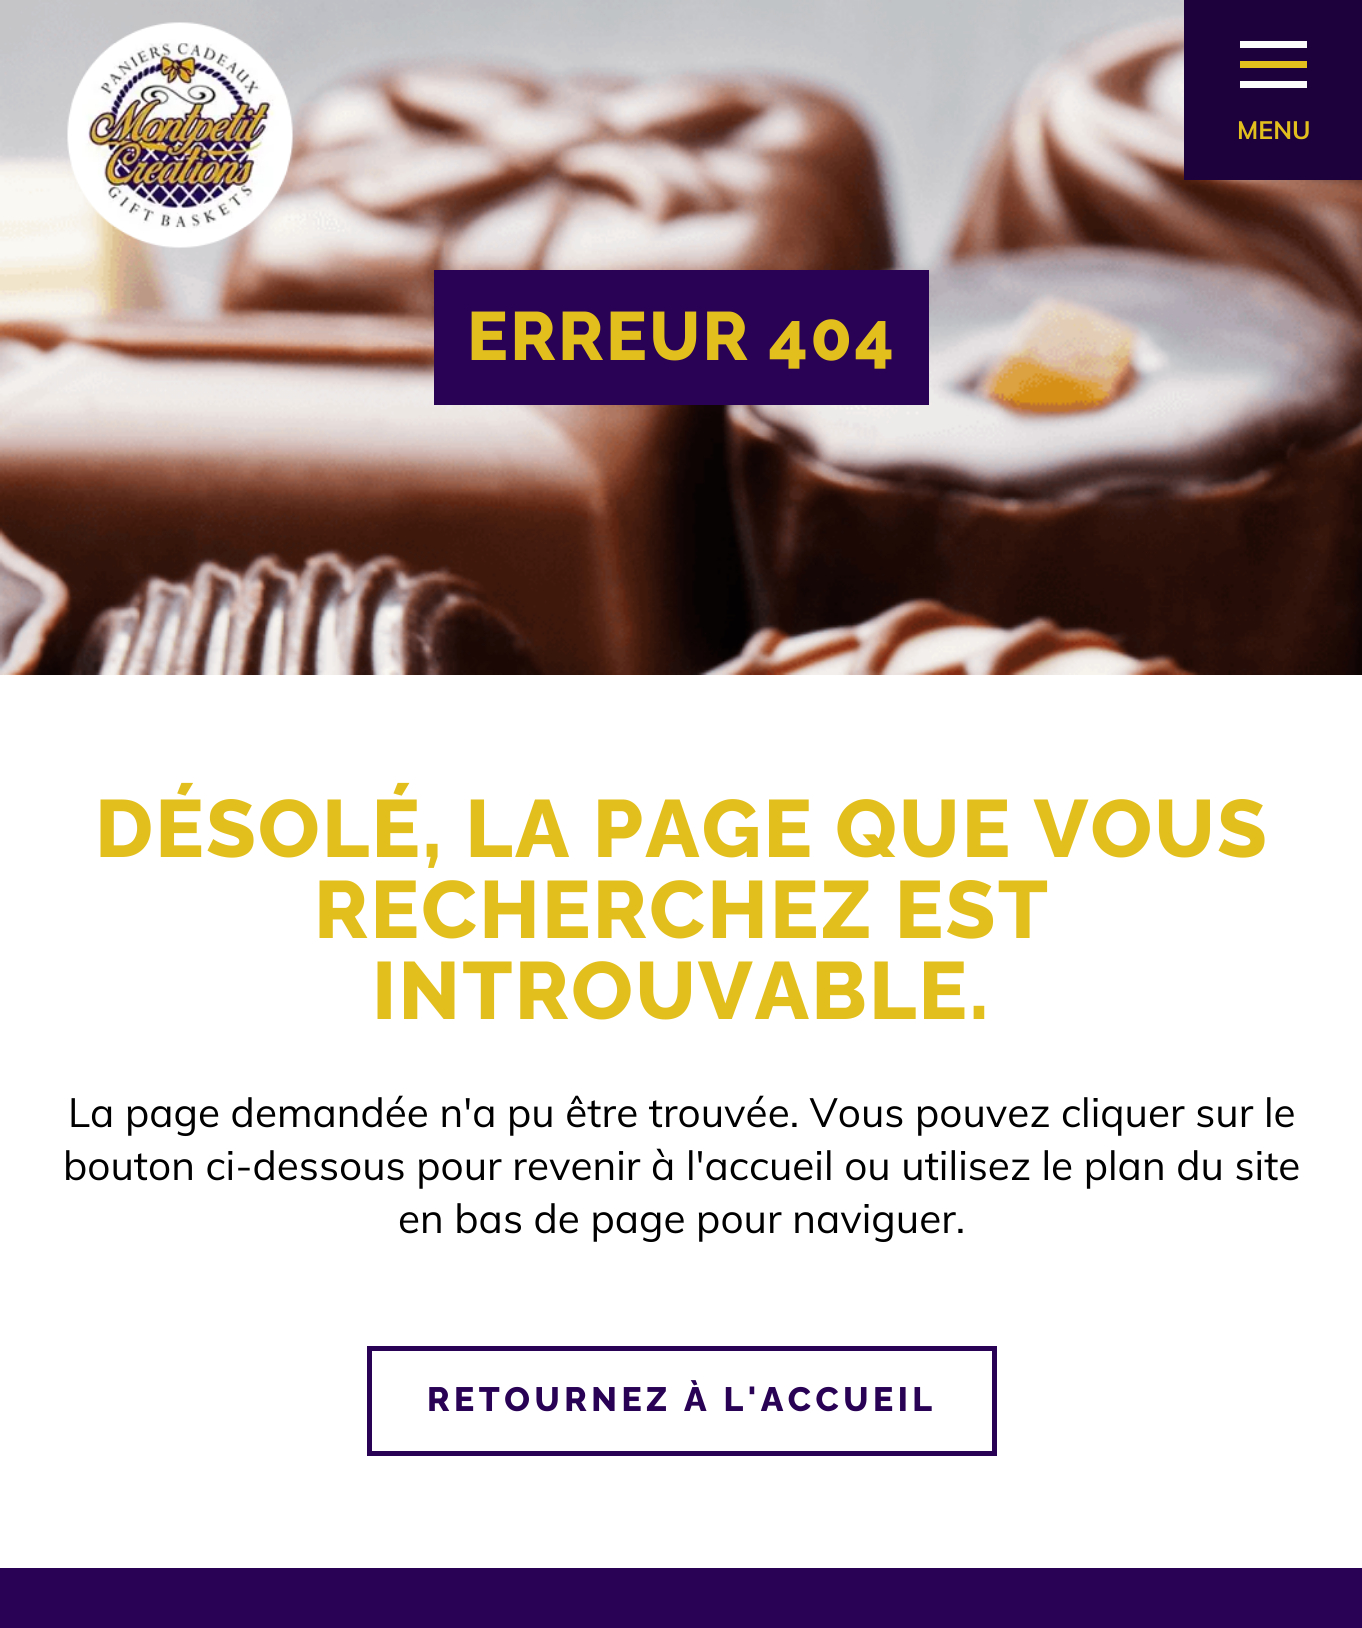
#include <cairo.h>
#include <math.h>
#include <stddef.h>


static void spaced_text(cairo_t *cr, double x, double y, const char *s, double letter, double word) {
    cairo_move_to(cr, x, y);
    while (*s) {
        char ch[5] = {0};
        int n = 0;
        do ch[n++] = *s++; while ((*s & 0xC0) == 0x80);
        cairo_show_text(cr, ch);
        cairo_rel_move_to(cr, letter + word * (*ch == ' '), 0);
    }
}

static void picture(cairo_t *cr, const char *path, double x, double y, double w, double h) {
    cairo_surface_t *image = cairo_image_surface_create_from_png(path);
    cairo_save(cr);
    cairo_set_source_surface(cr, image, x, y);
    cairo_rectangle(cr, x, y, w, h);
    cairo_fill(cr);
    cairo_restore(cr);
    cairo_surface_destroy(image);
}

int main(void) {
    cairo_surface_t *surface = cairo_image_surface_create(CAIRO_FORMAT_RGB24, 1362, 1628);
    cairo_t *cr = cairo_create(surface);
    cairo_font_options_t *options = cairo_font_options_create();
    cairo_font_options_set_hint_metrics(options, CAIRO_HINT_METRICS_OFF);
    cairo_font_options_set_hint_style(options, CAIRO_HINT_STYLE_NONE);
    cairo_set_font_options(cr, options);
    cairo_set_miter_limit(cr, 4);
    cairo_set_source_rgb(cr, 1, 1, 1);
    cairo_paint(cr);
    picture(cr, "img2.png", 0, 0, 1362, 675);
    picture(cr, "img1.png", 67, 22, 226, 226);
    cairo_set_source_rgb(cr, 0.114, 0.004, 0.239);
    cairo_rectangle(cr, 1184, 0, 178, 180);
    cairo_fill(cr);
    cairo_set_source_rgb(cr, 0.984, 0.984, 0.984);
    cairo_rectangle(cr, 1240, 41, 67, 7);
    cairo_fill(cr);
    cairo_set_source_rgb(cr, 0.89, 0.749, 0.118);
    cairo_rectangle(cr, 1240, 61, 67, 7);
    cairo_fill(cr);
    cairo_set_source_rgb(cr, 0.984, 0.984, 0.984);
    cairo_rectangle(cr, 1240, 81, 67, 7);
    cairo_fill(cr);
    cairo_select_font_face(cr, "Muli", CAIRO_FONT_SLANT_NORMAL, CAIRO_FONT_WEIGHT_BOLD);
    cairo_set_font_size(cr, 25);
    cairo_set_source_rgb(cr, 0.89, 0.749, 0.118);
    cairo_move_to(cr, 1237, 139);
    cairo_show_text(cr, "MENU");
    cairo_set_source_rgb(cr, 0.161, 0.008, 0.333);
    cairo_rectangle(cr, 434, 270, 495, 135);
    cairo_fill(cr);
    cairo_select_font_face(cr, "Raleway ExtraBold", CAIRO_FONT_SLANT_NORMAL, CAIRO_FONT_WEIGHT_NORMAL);
    cairo_set_font_size(cr, 68.25);
    cairo_set_source_rgb(cr, 0.89, 0.749, 0.118);
    spaced_text(cr, 467, 360, "ERREUR 404", 2.25, 0);
    cairo_set_font_size(cr, 81);
    spaced_text(cr, 95, 857, "DÉSOLÉ, LA PAGE QUE VOUS", 2.25, 0);
    spaced_text(cr, 314, 938, "RECHERCHEZ EST", 2.25, 0);
    spaced_text(cr, 372, 1019, "INTROUVABLE.", 2.25, 0);
    cairo_select_font_face(cr, "Muli", CAIRO_FONT_SLANT_NORMAL, CAIRO_FONT_WEIGHT_NORMAL);
    cairo_set_font_size(cr, 40.5);
    cairo_set_source_rgb(cr, 0, 0, 0);
    cairo_move_to(cr, 68, 1127);
    cairo_show_text(cr, "La page demandée n'a pu être trouvée. Vous pouvez cliquer sur le");
    cairo_move_to(cr, 63, 1180);
    cairo_show_text(cr, "bouton ci-dessous pour revenir à l'accueil ou utilisez le plan du site");
    cairo_move_to(cr, 398, 1233);
    cairo_show_text(cr, "en bas de page pour naviguer.");
    cairo_rectangle(cr, 369.5, 1348.5, 625, 105);
    cairo_set_source_rgb(cr, 0.161, 0.008, 0.333);
    cairo_set_line_width(cr, 5);
    cairo_stroke(cr);
    cairo_select_font_face(cr, "Raleway ExtraBold", CAIRO_FONT_SLANT_NORMAL, CAIRO_FONT_WEIGHT_NORMAL);
    cairo_set_font_size(cr, 33.75);
    spaced_text(cr, 427, 1411, "RETOURNEZ À L'ACCUEIL", 4.5, 0);
    cairo_rectangle(cr, 0, 1568, 1362, 60);
    cairo_fill(cr);
    cairo_surface_write_to_png(surface, "page.png");
    cairo_font_options_destroy(options);
    cairo_destroy(cr);
    cairo_surface_destroy(surface);
    return 0;
}
